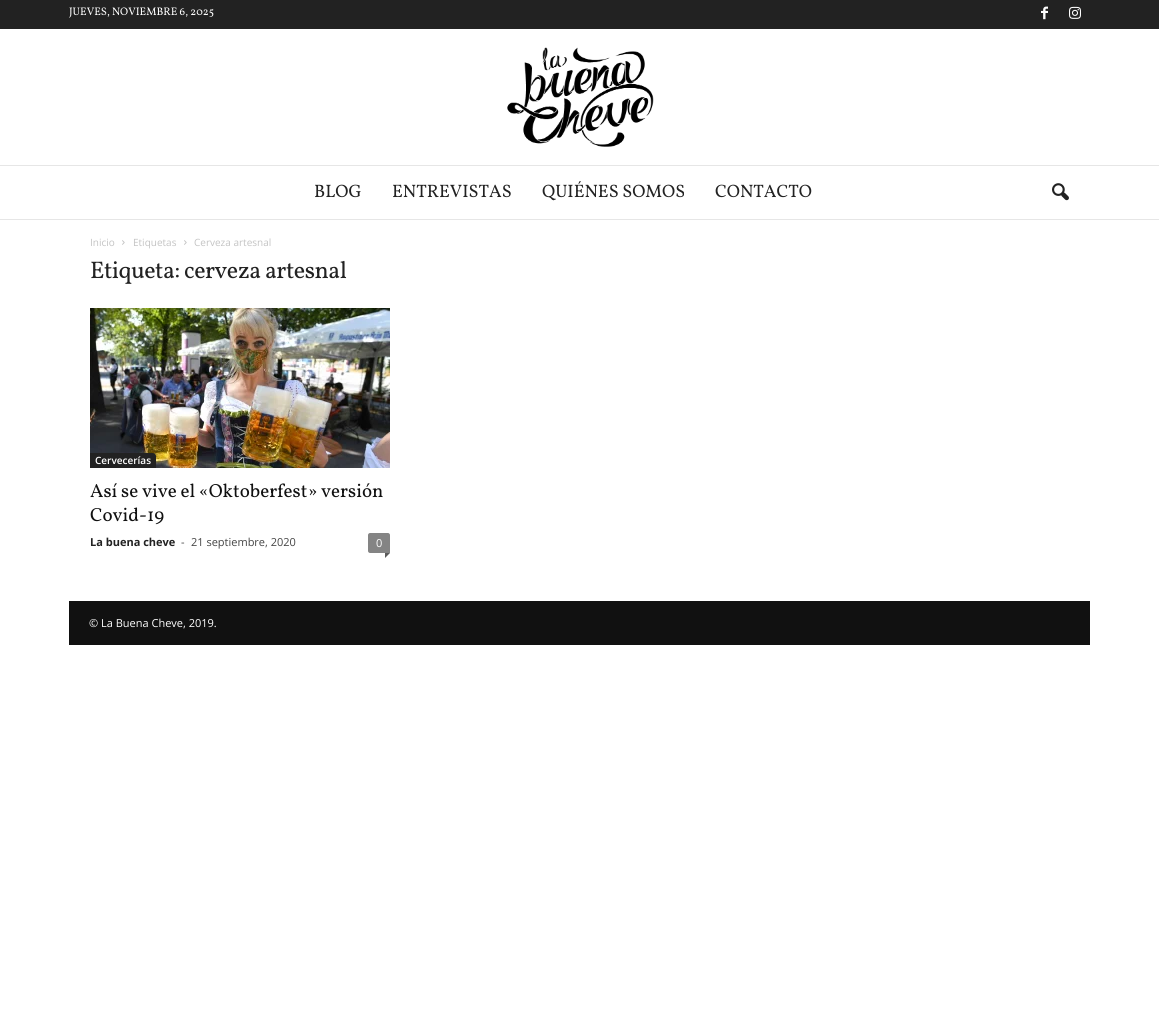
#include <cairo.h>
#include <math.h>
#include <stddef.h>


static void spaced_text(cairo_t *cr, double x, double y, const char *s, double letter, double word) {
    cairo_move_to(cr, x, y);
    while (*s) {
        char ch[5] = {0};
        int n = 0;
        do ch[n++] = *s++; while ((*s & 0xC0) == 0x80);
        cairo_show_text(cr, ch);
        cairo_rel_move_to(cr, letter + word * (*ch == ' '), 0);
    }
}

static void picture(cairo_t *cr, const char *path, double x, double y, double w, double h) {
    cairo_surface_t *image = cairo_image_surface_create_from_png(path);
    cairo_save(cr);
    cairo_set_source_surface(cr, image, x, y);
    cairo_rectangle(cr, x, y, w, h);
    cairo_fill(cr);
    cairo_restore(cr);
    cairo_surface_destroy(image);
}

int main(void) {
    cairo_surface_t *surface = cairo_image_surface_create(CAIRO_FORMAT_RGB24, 1159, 1030);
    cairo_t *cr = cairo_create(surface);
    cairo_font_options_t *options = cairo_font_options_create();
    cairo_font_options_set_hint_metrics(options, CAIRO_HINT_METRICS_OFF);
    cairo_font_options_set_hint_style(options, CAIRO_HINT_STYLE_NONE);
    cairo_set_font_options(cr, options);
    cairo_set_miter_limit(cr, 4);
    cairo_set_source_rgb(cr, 1, 1, 1);
    cairo_paint(cr);
    cairo_set_source_rgb(cr, 0.133, 0.133, 0.133);
    cairo_rectangle(cr, 0, 0, 1159, 29);
    cairo_fill(cr);
    cairo_select_font_face(cr, "Vollkorn", CAIRO_FONT_SLANT_NORMAL, CAIRO_FONT_WEIGHT_NORMAL);
    cairo_set_font_size(cr, 11);
    cairo_set_source_rgb(cr, 1, 1, 1);
    cairo_move_to(cr, 69, 15);
    cairo_show_text(cr, "JUEVES, NOVIEMBRE 6, 2025");
    picture(cr, "img1.png", 1041, 6, 7, 14);
    picture(cr, "img2.png", 1069, 6, 12, 13);
    picture(cr, "img3.png", 507, 47, 147, 100);
    cairo_set_source_rgb(cr, 0.902, 0.902, 0.902);
    cairo_rectangle(cr, 0, 165, 1159, 1);
    cairo_fill(cr);
    cairo_rectangle(cr, 0, 219, 1159, 1);
    cairo_fill(cr);
    cairo_set_font_size(cr, 18);
    cairo_set_source_rgb(cr, 0.133, 0.133, 0.133);
    cairo_move_to(cr, 314, 197);
    cairo_show_text(cr, "BLOG");
    cairo_move_to(cr, 392, 197);
    cairo_show_text(cr, "ENTREVISTAS");
    cairo_move_to(cr, 542, 197);
    cairo_show_text(cr, "QUIÉNES SOMOS");
    cairo_move_to(cr, 715, 197);
    cairo_show_text(cr, "CONTACTO");
    picture(cr, "img4.png", 1052, 183, 17, 18);
    cairo_select_font_face(cr, "Open Sans", CAIRO_FONT_SLANT_NORMAL, CAIRO_FONT_WEIGHT_NORMAL);
    cairo_set_font_size(cr, 10);
    cairo_set_source_rgb(cr, 0.765, 0.765, 0.765);
    cairo_move_to(cr, 90, 246);
    cairo_show_text(cr, "Inicio");
    picture(cr, "img5.png", 122, 240, 3, 5);
    cairo_move_to(cr, 133, 246);
    cairo_show_text(cr, "Etiquetas");
    picture(cr, "img5.png", 184, 240, 3, 5);
    cairo_move_to(cr, 194, 246);
    cairo_show_text(cr, "Cerveza artesnal");
    cairo_select_font_face(cr, "Vollkorn", CAIRO_FONT_SLANT_NORMAL, CAIRO_FONT_WEIGHT_NORMAL);
    cairo_set_font_size(cr, 24);
    cairo_set_source_rgb(cr, 0.133, 0.133, 0.133);
    spaced_text(cr, 90, 278, "Etiqueta: cerveza artesnal", -0.5, 0);
    picture(cr, "img6.png", 90, 308, 300, 160);
    cairo_new_path(cr);
    cairo_move_to(cr, 90, 453);
    cairo_line_to(cr, 153, 453);
    cairo_curve_to(cr, 154.5, 453, 156, 454.5, 156, 456);
    cairo_line_to(cr, 156, 468);
    cairo_line_to(cr, 90, 468);
    cairo_close_path(cr);
    cairo_fill(cr);
    cairo_select_font_face(cr, "Open Sans SemiBold", CAIRO_FONT_SLANT_NORMAL, CAIRO_FONT_WEIGHT_NORMAL);
    cairo_set_font_size(cr, 10);
    cairo_set_source_rgb(cr, 1, 1, 1);
    cairo_move_to(cr, 95, 464);
    cairo_show_text(cr, "Cervecerías");
    cairo_select_font_face(cr, "Vollkorn", CAIRO_FONT_SLANT_NORMAL, CAIRO_FONT_WEIGHT_NORMAL);
    cairo_set_font_size(cr, 19);
    cairo_set_source_rgb(cr, 0.067, 0.067, 0.067);
    cairo_move_to(cr, 90, 497);
    cairo_show_text(cr, "Así se vive el «Oktoberfest» versión");
    cairo_move_to(cr, 90, 521);
    cairo_show_text(cr, "Covid-19");
    cairo_select_font_face(cr, "Open Sans", CAIRO_FONT_SLANT_NORMAL, CAIRO_FONT_WEIGHT_BOLD);
    cairo_set_font_size(cr, 11);
    cairo_set_source_rgb(cr, 0.133, 0.133, 0.133);
    cairo_move_to(cr, 90, 546);
    cairo_show_text(cr, "La buena cheve");
    cairo_select_font_face(cr, "Open Sans", CAIRO_FONT_SLANT_NORMAL, CAIRO_FONT_WEIGHT_NORMAL);
    cairo_set_source_rgb(cr, 0.267, 0.267, 0.267);
    cairo_move_to(cr, 181, 546);
    cairo_show_text(cr, "-");
    cairo_move_to(cr, 191, 546);
    cairo_show_text(cr, "21 septiembre, 2020");
    cairo_set_source_rgb(cr, 0.518, 0.518, 0.518);
    cairo_new_path(cr);
    cairo_move_to(cr, 370, 533);
    cairo_line_to(cr, 388, 533);
    cairo_curve_to(cr, 389, 533, 390, 534, 390, 535);
    cairo_line_to(cr, 390, 553);
    cairo_line_to(cr, 370, 553);
    cairo_curve_to(cr, 369, 553, 368, 552, 368, 551);
    cairo_line_to(cr, 368, 535);
    cairo_curve_to(cr, 368, 534, 369, 533, 370, 533);
    cairo_close_path(cr);
    cairo_fill(cr);
    cairo_set_source_rgb(cr, 1, 1, 1);
    cairo_move_to(cr, 376, 547);
    cairo_show_text(cr, "0");
    cairo_set_source_rgb(cr, 0.357, 0.357, 0.357);
    cairo_new_path(cr);
    cairo_move_to(cr, 385, 553);
    cairo_line_to(cr, 390, 553);
    cairo_line_to(cr, 385, 558);
    cairo_close_path(cr);
    cairo_fill(cr);
    cairo_set_source_rgb(cr, 0.067, 0.067, 0.067);
    cairo_rectangle(cr, 69, 601, 1021, 44);
    cairo_fill(cr);
    cairo_set_source_rgb(cr, 1, 1, 1);
    cairo_move_to(cr, 89, 627);
    cairo_show_text(cr, "© La Buena Cheve, 2019.");
    cairo_surface_write_to_png(surface, "page.png");
    cairo_font_options_destroy(options);
    cairo_destroy(cr);
    cairo_surface_destroy(surface);
    return 0;
}
